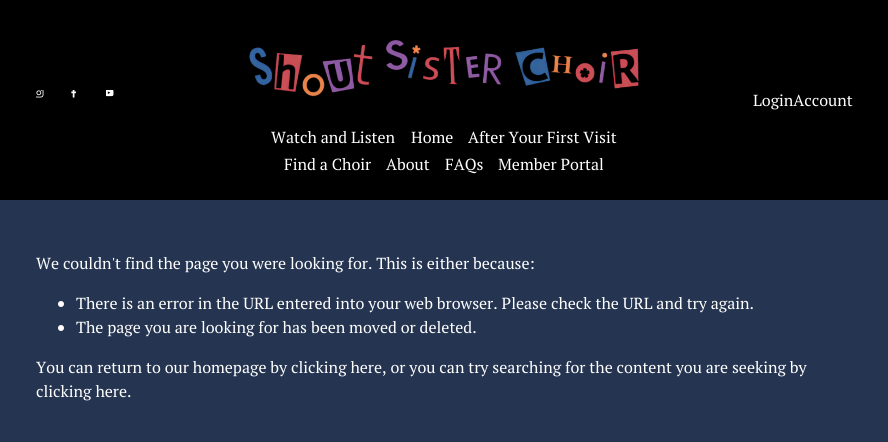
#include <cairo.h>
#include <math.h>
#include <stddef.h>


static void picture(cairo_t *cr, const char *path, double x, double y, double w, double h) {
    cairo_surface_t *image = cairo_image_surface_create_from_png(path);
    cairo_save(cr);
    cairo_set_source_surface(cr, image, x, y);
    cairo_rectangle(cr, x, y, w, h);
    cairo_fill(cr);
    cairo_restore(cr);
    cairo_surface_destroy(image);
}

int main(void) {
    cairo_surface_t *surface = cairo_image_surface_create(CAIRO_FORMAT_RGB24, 888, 442);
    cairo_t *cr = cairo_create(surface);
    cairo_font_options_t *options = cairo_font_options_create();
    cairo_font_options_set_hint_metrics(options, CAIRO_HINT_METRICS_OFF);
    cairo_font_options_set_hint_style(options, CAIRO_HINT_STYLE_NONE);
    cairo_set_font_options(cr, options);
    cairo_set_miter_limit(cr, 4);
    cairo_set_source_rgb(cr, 0.145, 0.208, 0.318);
    cairo_paint(cr);
    cairo_set_source_rgb(cr, 0, 0, 0);
    cairo_rectangle(cr, 0, 0, 888, 200);
    cairo_fill(cr);
    picture(cr, "img1.png", 36, 90, 8, 8);
    picture(cr, "img2.png", 71, 90, 6, 8);
    picture(cr, "img3.png", 106, 90, 8, 7);
    cairo_select_font_face(cr, "PT Serif", CAIRO_FONT_SLANT_NORMAL, CAIRO_FONT_WEIGHT_NORMAL);
    cairo_set_font_size(cr, 16);
    cairo_set_source_rgb(cr, 1, 1, 1);
    cairo_move_to(cr, 753, 106);
    cairo_show_text(cr, "LoginAccount");
    picture(cr, "img4.png", 249, 40, 390, 57);
    cairo_move_to(cr, 271, 143);
    cairo_show_text(cr, "Watch and Listen");
    cairo_move_to(cr, 411, 143);
    cairo_show_text(cr, "Home");
    cairo_move_to(cr, 468, 143);
    cairo_show_text(cr, "After Your First Visit");
    cairo_move_to(cr, 284, 170);
    cairo_show_text(cr, "Find a Choir");
    cairo_move_to(cr, 386, 170);
    cairo_show_text(cr, "About");
    cairo_move_to(cr, 445, 170);
    cairo_show_text(cr, "FAQs");
    cairo_move_to(cr, 498, 170);
    cairo_show_text(cr, "Member Portal");
    cairo_move_to(cr, 36, 269);
    cairo_show_text(cr, "We couldn't find the page you were looking for. This is either because:");
    cairo_new_path(cr);
    cairo_arc(cr, 61, 304, 3, 0, 2 * M_PI);
    cairo_fill(cr);
    cairo_move_to(cr, 76, 309);
    cairo_show_text(cr, "There is an error in the URL entered into your web browser. Please check the URL and try again.");
    cairo_new_path(cr);
    cairo_arc(cr, 61, 328, 3, 0, 2 * M_PI);
    cairo_fill(cr);
    cairo_move_to(cr, 76, 333);
    cairo_show_text(cr, "The page you are looking for has been moved or deleted.");
    cairo_move_to(cr, 36, 373);
    cairo_show_text(cr, "You can return to our homepage by clicking here, or you can try searching for the content you are seeking by");
    cairo_move_to(cr, 36, 397);
    cairo_show_text(cr, "clicking here.");
    cairo_surface_write_to_png(surface, "page.png");
    cairo_font_options_destroy(options);
    cairo_destroy(cr);
    cairo_surface_destroy(surface);
    return 0;
}
